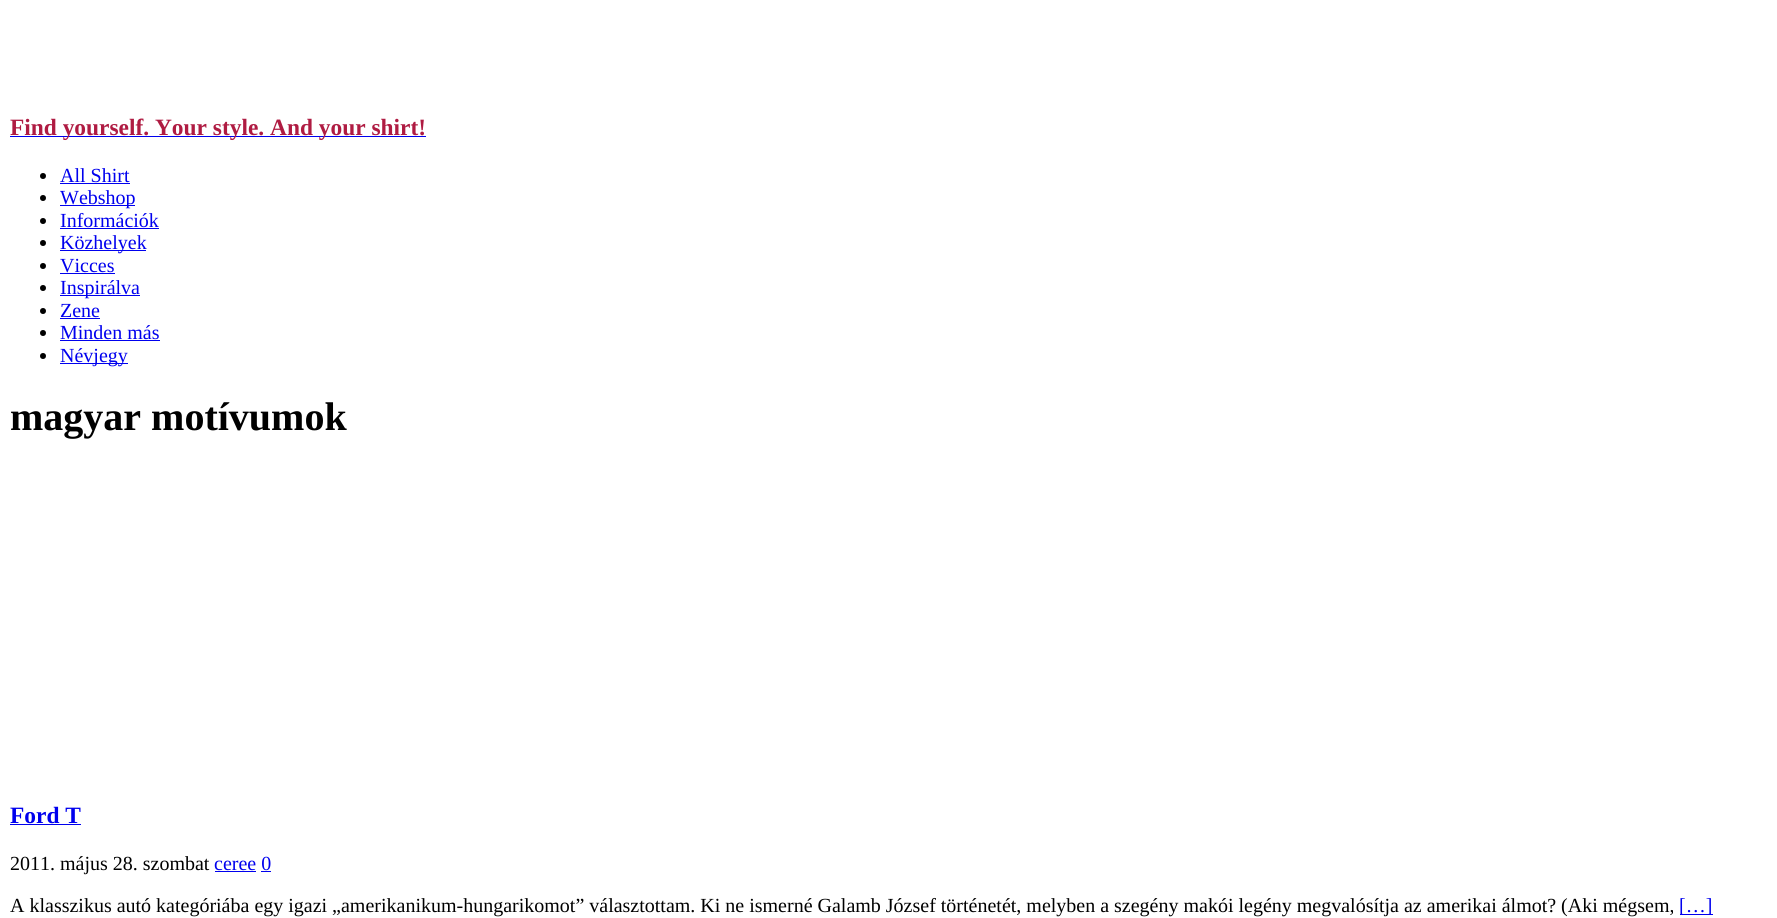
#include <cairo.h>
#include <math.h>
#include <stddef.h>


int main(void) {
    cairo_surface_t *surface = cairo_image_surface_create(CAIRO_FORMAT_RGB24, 1777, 918);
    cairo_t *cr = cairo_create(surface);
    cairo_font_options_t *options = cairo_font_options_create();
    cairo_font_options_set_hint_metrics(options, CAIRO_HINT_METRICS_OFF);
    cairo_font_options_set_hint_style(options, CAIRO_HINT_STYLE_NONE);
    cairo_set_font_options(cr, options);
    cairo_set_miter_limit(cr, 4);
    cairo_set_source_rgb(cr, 1, 1, 1);
    cairo_paint(cr);
    cairo_set_source_rgb(cr, 0, 0, 0.933);
    cairo_rectangle(cr, 10, 136, 416, 1);
    cairo_fill(cr);
    cairo_select_font_face(cr, "Liberation Serif", CAIRO_FONT_SLANT_NORMAL, CAIRO_FONT_WEIGHT_BOLD);
    cairo_set_font_size(cr, 23.4);
    cairo_set_source_rgb(cr, 0.686, 0.106, 0.259);
    cairo_move_to(cr, 10, 135);
    cairo_show_text(cr, "Find yourself. Your style. And your shirt!");
    cairo_set_source_rgb(cr, 0, 0, 0);
    cairo_new_path(cr);
    cairo_arc(cr, 43, 176, 3, 0, 2 * M_PI);
    cairo_fill(cr);
    cairo_select_font_face(cr, "Liberation Serif", CAIRO_FONT_SLANT_NORMAL, CAIRO_FONT_WEIGHT_NORMAL);
    cairo_set_font_size(cr, 20);
    cairo_set_source_rgb(cr, 0, 0, 0.933);
    cairo_move_to(cr, 60, 182);
    cairo_show_text(cr, "All Shirt");
    cairo_rectangle(cr, 60, 183, 70, 1);
    cairo_fill(cr);
    cairo_set_source_rgb(cr, 0, 0, 0);
    cairo_arc(cr, 43, 198, 3, 0, 2 * M_PI);
    cairo_fill(cr);
    cairo_set_source_rgb(cr, 0, 0, 0.933);
    cairo_rectangle(cr, 60, 205, 75, 1);
    cairo_fill(cr);
    cairo_move_to(cr, 60, 204);
    cairo_show_text(cr, "Webshop");
    cairo_set_source_rgb(cr, 0, 0, 0);
    cairo_new_path(cr);
    cairo_arc(cr, 43, 221, 3, 0, 2 * M_PI);
    cairo_fill(cr);
    cairo_set_source_rgb(cr, 0, 0, 0.933);
    cairo_move_to(cr, 60, 227);
    cairo_show_text(cr, "Információk");
    cairo_rectangle(cr, 60, 228, 99, 1);
    cairo_fill(cr);
    cairo_set_source_rgb(cr, 0, 0, 0);
    cairo_arc(cr, 43, 243, 3, 0, 2 * M_PI);
    cairo_fill(cr);
    cairo_set_source_rgb(cr, 0, 0, 0.933);
    cairo_rectangle(cr, 60, 250, 86, 1);
    cairo_fill(cr);
    cairo_move_to(cr, 60, 249);
    cairo_show_text(cr, "Közhelyek");
    cairo_set_source_rgb(cr, 0, 0, 0);
    cairo_new_path(cr);
    cairo_arc(cr, 43, 266, 3, 0, 2 * M_PI);
    cairo_fill(cr);
    cairo_set_source_rgb(cr, 0, 0, 0.933);
    cairo_move_to(cr, 60, 272);
    cairo_show_text(cr, "Vicces");
    cairo_rectangle(cr, 60, 273, 55, 1);
    cairo_fill(cr);
    cairo_set_source_rgb(cr, 0, 0, 0);
    cairo_arc(cr, 43, 288, 3, 0, 2 * M_PI);
    cairo_fill(cr);
    cairo_set_source_rgb(cr, 0, 0, 0.933);
    cairo_rectangle(cr, 60, 295, 80, 1);
    cairo_fill(cr);
    cairo_move_to(cr, 60, 294);
    cairo_show_text(cr, "Inspirálva");
    cairo_set_source_rgb(cr, 0, 0, 0);
    cairo_new_path(cr);
    cairo_arc(cr, 43, 311, 3, 0, 2 * M_PI);
    cairo_fill(cr);
    cairo_set_source_rgb(cr, 0, 0, 0.933);
    cairo_move_to(cr, 60, 317);
    cairo_show_text(cr, "Zene");
    cairo_rectangle(cr, 60, 318, 40, 1);
    cairo_fill(cr);
    cairo_set_source_rgb(cr, 0, 0, 0);
    cairo_arc(cr, 43, 333, 3, 0, 2 * M_PI);
    cairo_fill(cr);
    cairo_set_source_rgb(cr, 0, 0, 0.933);
    cairo_move_to(cr, 60, 339);
    cairo_show_text(cr, "Minden más");
    cairo_rectangle(cr, 60, 340, 100, 1);
    cairo_fill(cr);
    cairo_set_source_rgb(cr, 0, 0, 0);
    cairo_arc(cr, 43, 356, 3, 0, 2 * M_PI);
    cairo_fill(cr);
    cairo_set_source_rgb(cr, 0, 0, 0.933);
    cairo_rectangle(cr, 60, 363, 68, 1);
    cairo_fill(cr);
    cairo_move_to(cr, 60, 362);
    cairo_show_text(cr, "Névjegy");
    cairo_select_font_face(cr, "Liberation Serif", CAIRO_FONT_SLANT_NORMAL, CAIRO_FONT_WEIGHT_BOLD);
    cairo_set_font_size(cr, 40);
    cairo_set_source_rgb(cr, 0, 0, 0);
    cairo_move_to(cr, 10, 430);
    cairo_show_text(cr, "magyar motívumok");
    cairo_set_font_size(cr, 23.4);
    cairo_set_source_rgb(cr, 0, 0, 0.933);
    cairo_move_to(cr, 10, 823);
    cairo_show_text(cr, "Ford T");
    cairo_rectangle(cr, 10, 824, 71, 1);
    cairo_fill(cr);
    cairo_select_font_face(cr, "Liberation Serif", CAIRO_FONT_SLANT_NORMAL, CAIRO_FONT_WEIGHT_NORMAL);
    cairo_set_font_size(cr, 20);
    cairo_set_source_rgb(cr, 0, 0, 0);
    cairo_move_to(cr, 10, 870);
    cairo_show_text(cr, "2011. május 28. szombat");
    cairo_set_source_rgb(cr, 0, 0, 0.933);
    cairo_move_to(cr, 214, 870);
    cairo_show_text(cr, "ceree 0");
    cairo_rectangle(cr, 215, 871, 41, 1);
    cairo_fill(cr);
    cairo_rectangle(cr, 261, 871, 10, 1);
    cairo_fill(cr);
    cairo_set_source_rgb(cr, 0, 0, 0);
    cairo_move_to(cr, 10, 912);
    cairo_show_text(cr, "A klasszikus autó kategóriába egy igazi „amerikanikum-hungarikomot” választottam. Ki ne ismerné Galamb József történetét, melyben a szegény makói legény megvalósítja az amerikai álmot? (Aki mégsem,");
    cairo_set_source_rgb(cr, 0, 0, 0.933);
    cairo_rectangle(cr, 1680, 914, 33, 1);
    cairo_fill(cr);
    cairo_move_to(cr, 1679, 912);
    cairo_show_text(cr, "[…]");
    cairo_surface_write_to_png(surface, "page.png");
    cairo_font_options_destroy(options);
    cairo_destroy(cr);
    cairo_surface_destroy(surface);
    return 0;
}
